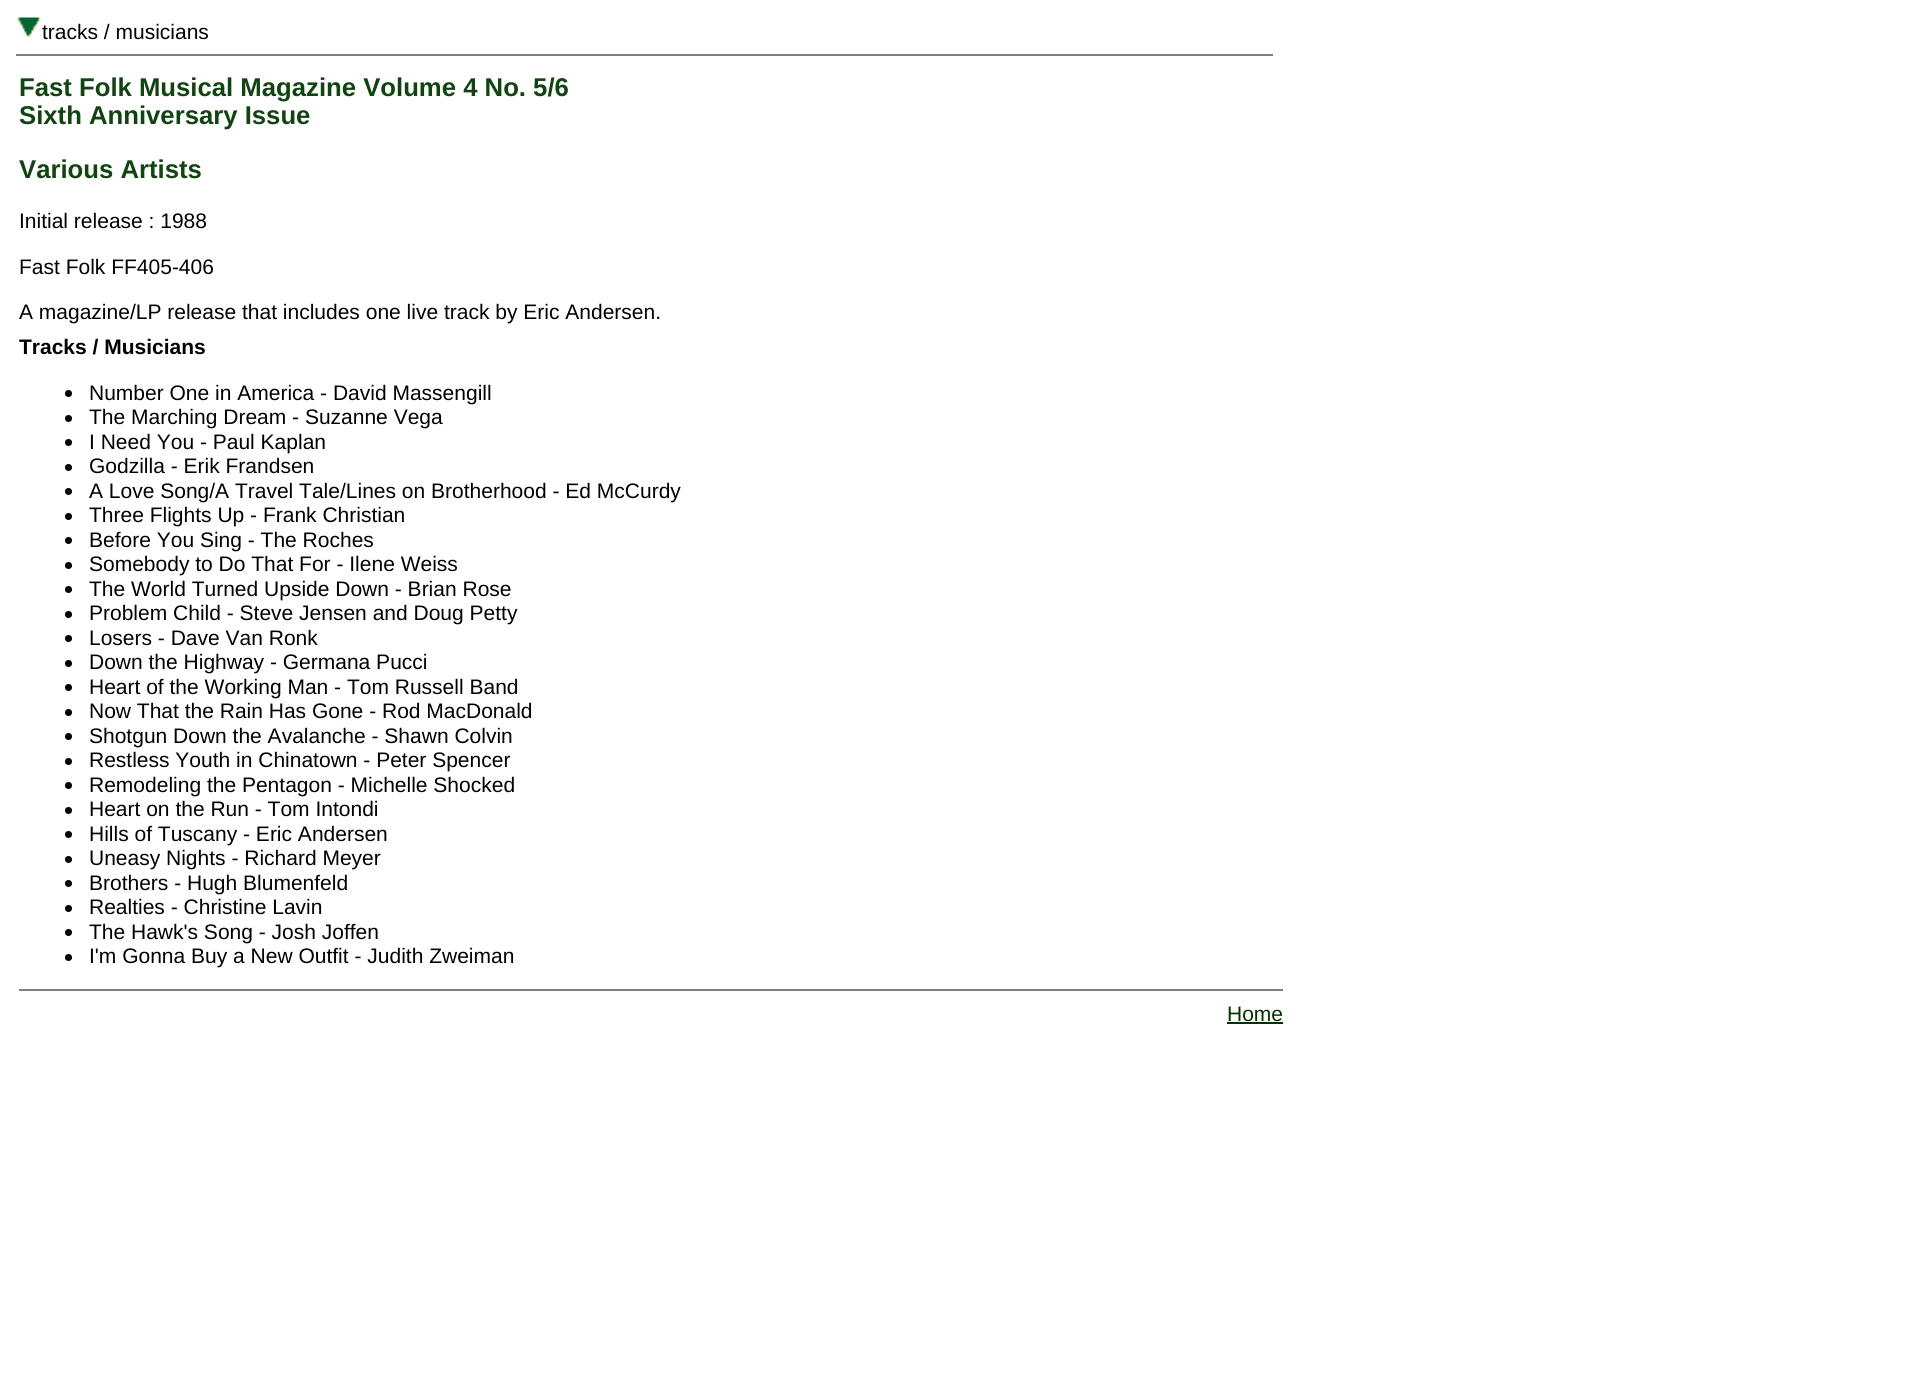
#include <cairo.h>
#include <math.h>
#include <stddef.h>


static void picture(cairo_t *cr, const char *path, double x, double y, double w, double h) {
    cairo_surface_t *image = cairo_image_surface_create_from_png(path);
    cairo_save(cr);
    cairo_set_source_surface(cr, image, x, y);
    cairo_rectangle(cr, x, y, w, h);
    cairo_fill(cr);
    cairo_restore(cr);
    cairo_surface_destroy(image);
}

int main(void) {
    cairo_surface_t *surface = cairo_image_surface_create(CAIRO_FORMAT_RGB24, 1908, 1375);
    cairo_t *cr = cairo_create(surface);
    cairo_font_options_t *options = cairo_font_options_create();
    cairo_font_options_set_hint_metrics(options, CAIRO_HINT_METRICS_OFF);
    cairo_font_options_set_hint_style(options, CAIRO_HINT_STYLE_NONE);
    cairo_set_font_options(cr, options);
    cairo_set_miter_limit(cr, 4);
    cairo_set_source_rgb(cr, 1, 1, 1);
    cairo_paint(cr);
    picture(cr, "img1.png", 17, 17, 24, 21);
    cairo_select_font_face(cr, "Liberation Sans", CAIRO_FONT_SLANT_NORMAL, CAIRO_FONT_WEIGHT_NORMAL);
    cairo_set_font_size(cr, 21);
    cairo_set_source_rgb(cr, 0, 0, 0);
    cairo_move_to(cr, 42, 39);
    cairo_show_text(cr, "tracks / musicians");
    cairo_set_source_rgb(cr, 0.502, 0.502, 0.502);
    cairo_rectangle(cr, 16, 54, 1257, 2);
    cairo_fill(cr);
    cairo_select_font_face(cr, "Liberation Sans", CAIRO_FONT_SLANT_NORMAL, CAIRO_FONT_WEIGHT_BOLD);
    cairo_set_font_size(cr, 25.7);
    cairo_set_source_rgb(cr, 0.067, 0.267, 0.067);
    cairo_move_to(cr, 19, 96);
    cairo_show_text(cr, "Fast Folk Musical Magazine Volume 4 No. 5/6");
    cairo_move_to(cr, 19, 124);
    cairo_show_text(cr, "Sixth Anniversary Issue");
    cairo_move_to(cr, 19, 178);
    cairo_show_text(cr, "Various Artists");
    cairo_select_font_face(cr, "Liberation Sans", CAIRO_FONT_SLANT_NORMAL, CAIRO_FONT_WEIGHT_NORMAL);
    cairo_set_font_size(cr, 21);
    cairo_set_source_rgb(cr, 0, 0, 0);
    cairo_move_to(cr, 19, 228);
    cairo_show_text(cr, "Initial release : 1988");
    cairo_move_to(cr, 19, 274);
    cairo_show_text(cr, "Fast Folk FF405-406");
    cairo_move_to(cr, 19, 319);
    cairo_show_text(cr, "A magazine/LP release that includes one live track by Eric Andersen.");
    cairo_select_font_face(cr, "Liberation Sans", CAIRO_FONT_SLANT_NORMAL, CAIRO_FONT_WEIGHT_BOLD);
    cairo_move_to(cr, 19, 354);
    cairo_show_text(cr, "Tracks / Musicians");
    cairo_new_path(cr);
    cairo_arc(cr, 68.5, 393.5, 3.5, 0, 2 * M_PI);
    cairo_fill(cr);
    cairo_select_font_face(cr, "Liberation Sans", CAIRO_FONT_SLANT_NORMAL, CAIRO_FONT_WEIGHT_NORMAL);
    cairo_move_to(cr, 89, 400);
    cairo_show_text(cr, "Number One in America - David Massengill");
    cairo_new_path(cr);
    cairo_arc(cr, 68.5, 418.5, 3.5, 0, 2 * M_PI);
    cairo_fill(cr);
    cairo_move_to(cr, 89, 424);
    cairo_show_text(cr, "The Marching Dream - Suzanne Vega");
    cairo_new_path(cr);
    cairo_arc(cr, 68.5, 442.5, 3.5, 0, 2 * M_PI);
    cairo_fill(cr);
    cairo_move_to(cr, 89, 449);
    cairo_show_text(cr, "I Need You - Paul Kaplan");
    cairo_new_path(cr);
    cairo_arc(cr, 68.5, 467.5, 3.5, 0, 2 * M_PI);
    cairo_fill(cr);
    cairo_move_to(cr, 89, 473);
    cairo_show_text(cr, "Godzilla - Erik Frandsen");
    cairo_new_path(cr);
    cairo_arc(cr, 68.5, 491.5, 3.5, 0, 2 * M_PI);
    cairo_fill(cr);
    cairo_move_to(cr, 89, 498);
    cairo_show_text(cr, "A Love Song/A Travel Tale/Lines on Brotherhood - Ed McCurdy");
    cairo_new_path(cr);
    cairo_arc(cr, 68.5, 516.5, 3.5, 0, 2 * M_PI);
    cairo_fill(cr);
    cairo_move_to(cr, 89, 522);
    cairo_show_text(cr, "Three Flights Up - Frank Christian");
    cairo_new_path(cr);
    cairo_arc(cr, 68.5, 540.5, 3.5, 0, 2 * M_PI);
    cairo_fill(cr);
    cairo_move_to(cr, 89, 547);
    cairo_show_text(cr, "Before You Sing - The Roches");
    cairo_new_path(cr);
    cairo_arc(cr, 68.5, 565.5, 3.5, 0, 2 * M_PI);
    cairo_fill(cr);
    cairo_move_to(cr, 89, 571);
    cairo_show_text(cr, "Somebody to Do That For - Ilene Weiss");
    cairo_new_path(cr);
    cairo_arc(cr, 68.5, 589.5, 3.5, 0, 2 * M_PI);
    cairo_fill(cr);
    cairo_move_to(cr, 89, 596);
    cairo_show_text(cr, "The World Turned Upside Down - Brian Rose");
    cairo_new_path(cr);
    cairo_arc(cr, 68.5, 614.5, 3.5, 0, 2 * M_PI);
    cairo_fill(cr);
    cairo_move_to(cr, 89, 620);
    cairo_show_text(cr, "Problem Child - Steve Jensen and Doug Petty");
    cairo_new_path(cr);
    cairo_arc(cr, 68.5, 638.5, 3.5, 0, 2 * M_PI);
    cairo_fill(cr);
    cairo_move_to(cr, 89, 645);
    cairo_show_text(cr, "Losers - Dave Van Ronk");
    cairo_new_path(cr);
    cairo_arc(cr, 68.5, 663.5, 3.5, 0, 2 * M_PI);
    cairo_fill(cr);
    cairo_move_to(cr, 89, 669);
    cairo_show_text(cr, "Down the Highway - Germana Pucci");
    cairo_new_path(cr);
    cairo_arc(cr, 68.5, 687.5, 3.5, 0, 2 * M_PI);
    cairo_fill(cr);
    cairo_move_to(cr, 89, 694);
    cairo_show_text(cr, "Heart of the Working Man - Tom Russell Band");
    cairo_new_path(cr);
    cairo_arc(cr, 68.5, 712.5, 3.5, 0, 2 * M_PI);
    cairo_fill(cr);
    cairo_move_to(cr, 89, 718);
    cairo_show_text(cr, "Now That the Rain Has Gone - Rod MacDonald");
    cairo_new_path(cr);
    cairo_arc(cr, 68.5, 736.5, 3.5, 0, 2 * M_PI);
    cairo_fill(cr);
    cairo_move_to(cr, 89, 743);
    cairo_show_text(cr, "Shotgun Down the Avalanche - Shawn Colvin");
    cairo_new_path(cr);
    cairo_arc(cr, 68.5, 761.5, 3.5, 0, 2 * M_PI);
    cairo_fill(cr);
    cairo_move_to(cr, 89, 767);
    cairo_show_text(cr, "Restless Youth in Chinatown - Peter Spencer");
    cairo_new_path(cr);
    cairo_arc(cr, 68.5, 785.5, 3.5, 0, 2 * M_PI);
    cairo_fill(cr);
    cairo_move_to(cr, 89, 792);
    cairo_show_text(cr, "Remodeling the Pentagon - Michelle Shocked");
    cairo_new_path(cr);
    cairo_arc(cr, 68.5, 810.5, 3.5, 0, 2 * M_PI);
    cairo_fill(cr);
    cairo_move_to(cr, 89, 816);
    cairo_show_text(cr, "Heart on the Run - Tom Intondi");
    cairo_new_path(cr);
    cairo_arc(cr, 68.5, 834.5, 3.5, 0, 2 * M_PI);
    cairo_fill(cr);
    cairo_move_to(cr, 89, 841);
    cairo_show_text(cr, "Hills of Tuscany - Eric Andersen");
    cairo_new_path(cr);
    cairo_arc(cr, 68.5, 859.5, 3.5, 0, 2 * M_PI);
    cairo_fill(cr);
    cairo_move_to(cr, 89, 865);
    cairo_show_text(cr, "Uneasy Nights - Richard Meyer");
    cairo_new_path(cr);
    cairo_arc(cr, 68.5, 883.5, 3.5, 0, 2 * M_PI);
    cairo_fill(cr);
    cairo_move_to(cr, 89, 890);
    cairo_show_text(cr, "Brothers - Hugh Blumenfeld");
    cairo_new_path(cr);
    cairo_arc(cr, 68.5, 908.5, 3.5, 0, 2 * M_PI);
    cairo_fill(cr);
    cairo_move_to(cr, 89, 914);
    cairo_show_text(cr, "Realties - Christine Lavin");
    cairo_new_path(cr);
    cairo_arc(cr, 68.5, 932.5, 3.5, 0, 2 * M_PI);
    cairo_fill(cr);
    cairo_move_to(cr, 89, 939);
    cairo_show_text(cr, "The Hawk's Song - Josh Joffen");
    cairo_new_path(cr);
    cairo_arc(cr, 68.5, 957.5, 3.5, 0, 2 * M_PI);
    cairo_fill(cr);
    cairo_move_to(cr, 89, 963);
    cairo_show_text(cr, "I'm Gonna Buy a New Outfit - Judith Zweiman");
    cairo_set_source_rgb(cr, 0.502, 0.502, 0.502);
    cairo_rectangle(cr, 19, 989, 1264, 2);
    cairo_fill(cr);
    cairo_set_source_rgb(cr, 0, 0.2, 0);
    cairo_move_to(cr, 1227, 1021);
    cairo_show_text(cr, "Home");
    cairo_rectangle(cr, 1227, 1022, 56, 2);
    cairo_fill(cr);
    cairo_surface_write_to_png(surface, "page.png");
    cairo_font_options_destroy(options);
    cairo_destroy(cr);
    cairo_surface_destroy(surface);
    return 0;
}
